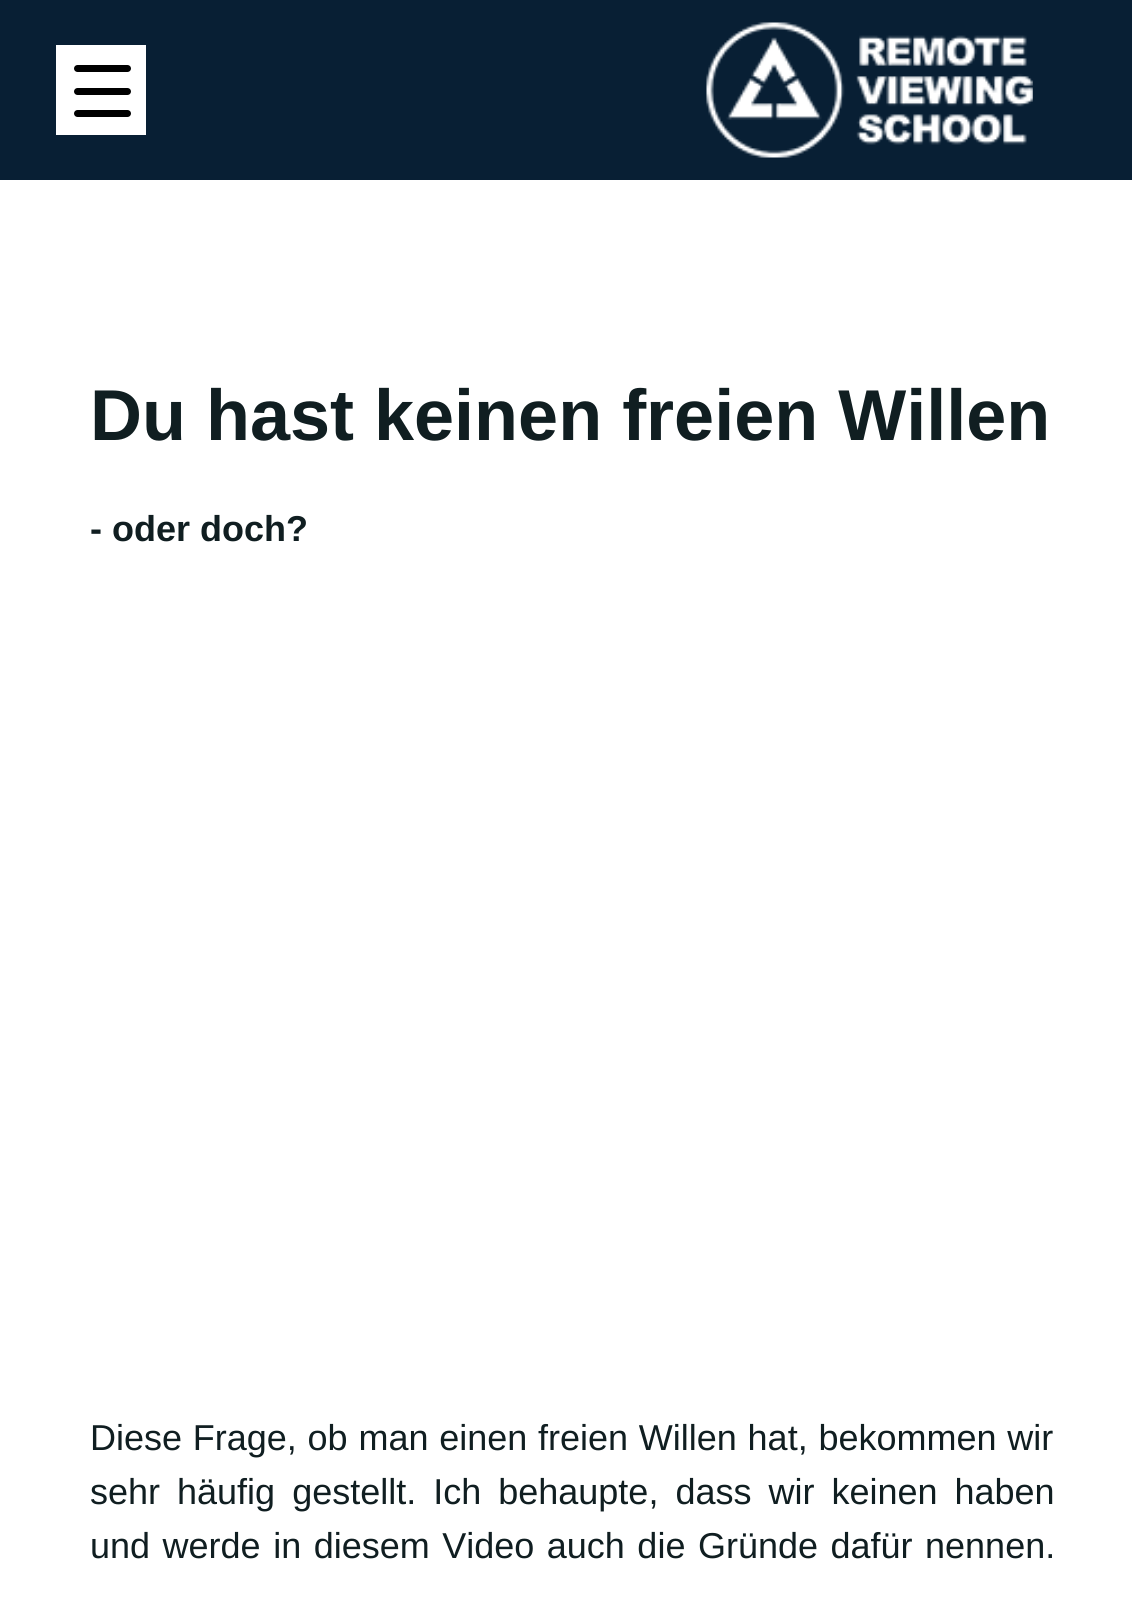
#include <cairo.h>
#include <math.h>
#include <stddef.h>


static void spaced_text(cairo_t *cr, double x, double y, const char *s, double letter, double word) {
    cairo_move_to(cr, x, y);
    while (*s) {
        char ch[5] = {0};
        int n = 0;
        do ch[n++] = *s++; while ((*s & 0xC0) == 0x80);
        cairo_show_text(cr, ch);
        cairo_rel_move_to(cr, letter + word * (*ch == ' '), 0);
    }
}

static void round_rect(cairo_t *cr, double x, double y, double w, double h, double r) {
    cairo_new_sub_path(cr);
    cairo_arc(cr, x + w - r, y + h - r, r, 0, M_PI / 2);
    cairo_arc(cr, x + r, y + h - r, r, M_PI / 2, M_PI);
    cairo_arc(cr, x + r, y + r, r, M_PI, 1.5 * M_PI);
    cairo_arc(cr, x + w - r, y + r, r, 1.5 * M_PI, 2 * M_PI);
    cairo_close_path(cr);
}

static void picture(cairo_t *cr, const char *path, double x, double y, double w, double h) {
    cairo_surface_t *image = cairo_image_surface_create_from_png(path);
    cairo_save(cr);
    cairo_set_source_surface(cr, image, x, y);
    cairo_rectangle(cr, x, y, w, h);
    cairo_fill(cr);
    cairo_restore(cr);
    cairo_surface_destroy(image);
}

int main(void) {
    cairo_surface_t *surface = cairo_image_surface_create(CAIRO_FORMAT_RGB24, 1132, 1597);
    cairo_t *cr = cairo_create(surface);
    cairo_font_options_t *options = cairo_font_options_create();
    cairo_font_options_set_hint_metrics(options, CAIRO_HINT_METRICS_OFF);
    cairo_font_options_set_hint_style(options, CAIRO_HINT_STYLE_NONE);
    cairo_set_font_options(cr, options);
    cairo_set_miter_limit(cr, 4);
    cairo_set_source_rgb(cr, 1, 1, 1);
    cairo_paint(cr);
    cairo_set_source_rgb(cr, 0.035, 0.122, 0.204);
    cairo_rectangle(cr, 0, 0, 1132, 180);
    cairo_fill(cr);
    picture(cr, "img1.png", 706, 22, 327, 136);
    cairo_set_source_rgb(cr, 1, 1, 1);
    cairo_rectangle(cr, 56, 45, 90, 90);
    cairo_fill(cr);
    cairo_set_source_rgb(cr, 0, 0, 0);
    round_rect(cr, 74, 88, 57, 7, 3.5);
    cairo_fill(cr);
    round_rect(cr, 74, 65, 57, 7, 3.5);
    cairo_fill(cr);
    round_rect(cr, 74, 110, 57, 7, 3.5);
    cairo_fill(cr);
    cairo_select_font_face(cr, "Liberation Sans", CAIRO_FONT_SLANT_NORMAL, CAIRO_FONT_WEIGHT_BOLD);
    cairo_set_font_size(cr, 72);
    cairo_set_source_rgb(cr, 0.063, 0.118, 0.129);
    cairo_move_to(cr, 90, 440);
    cairo_show_text(cr, "Du hast keinen freien Willen");
    cairo_set_font_size(cr, 36);
    cairo_move_to(cr, 90, 541);
    cairo_show_text(cr, "- oder doch?");
    cairo_select_font_face(cr, "Liberation Sans", CAIRO_FONT_SLANT_NORMAL, CAIRO_FONT_WEIGHT_NORMAL);
    spaced_text(cr, 90, 1450, "Diese Frage, ob man einen freien Willen hat, bekommen wir", 0, 0.75);
    spaced_text(cr, 90, 1504, "sehr häufig gestellt. Ich behaupte, dass wir keinen haben", 0, 7);
    spaced_text(cr, 90, 1558, "und werde in diesem Video auch die Gründe dafür nennen.", 0, 2.5);
    cairo_surface_write_to_png(surface, "page.png");
    cairo_font_options_destroy(options);
    cairo_destroy(cr);
    cairo_surface_destroy(surface);
    return 0;
}
